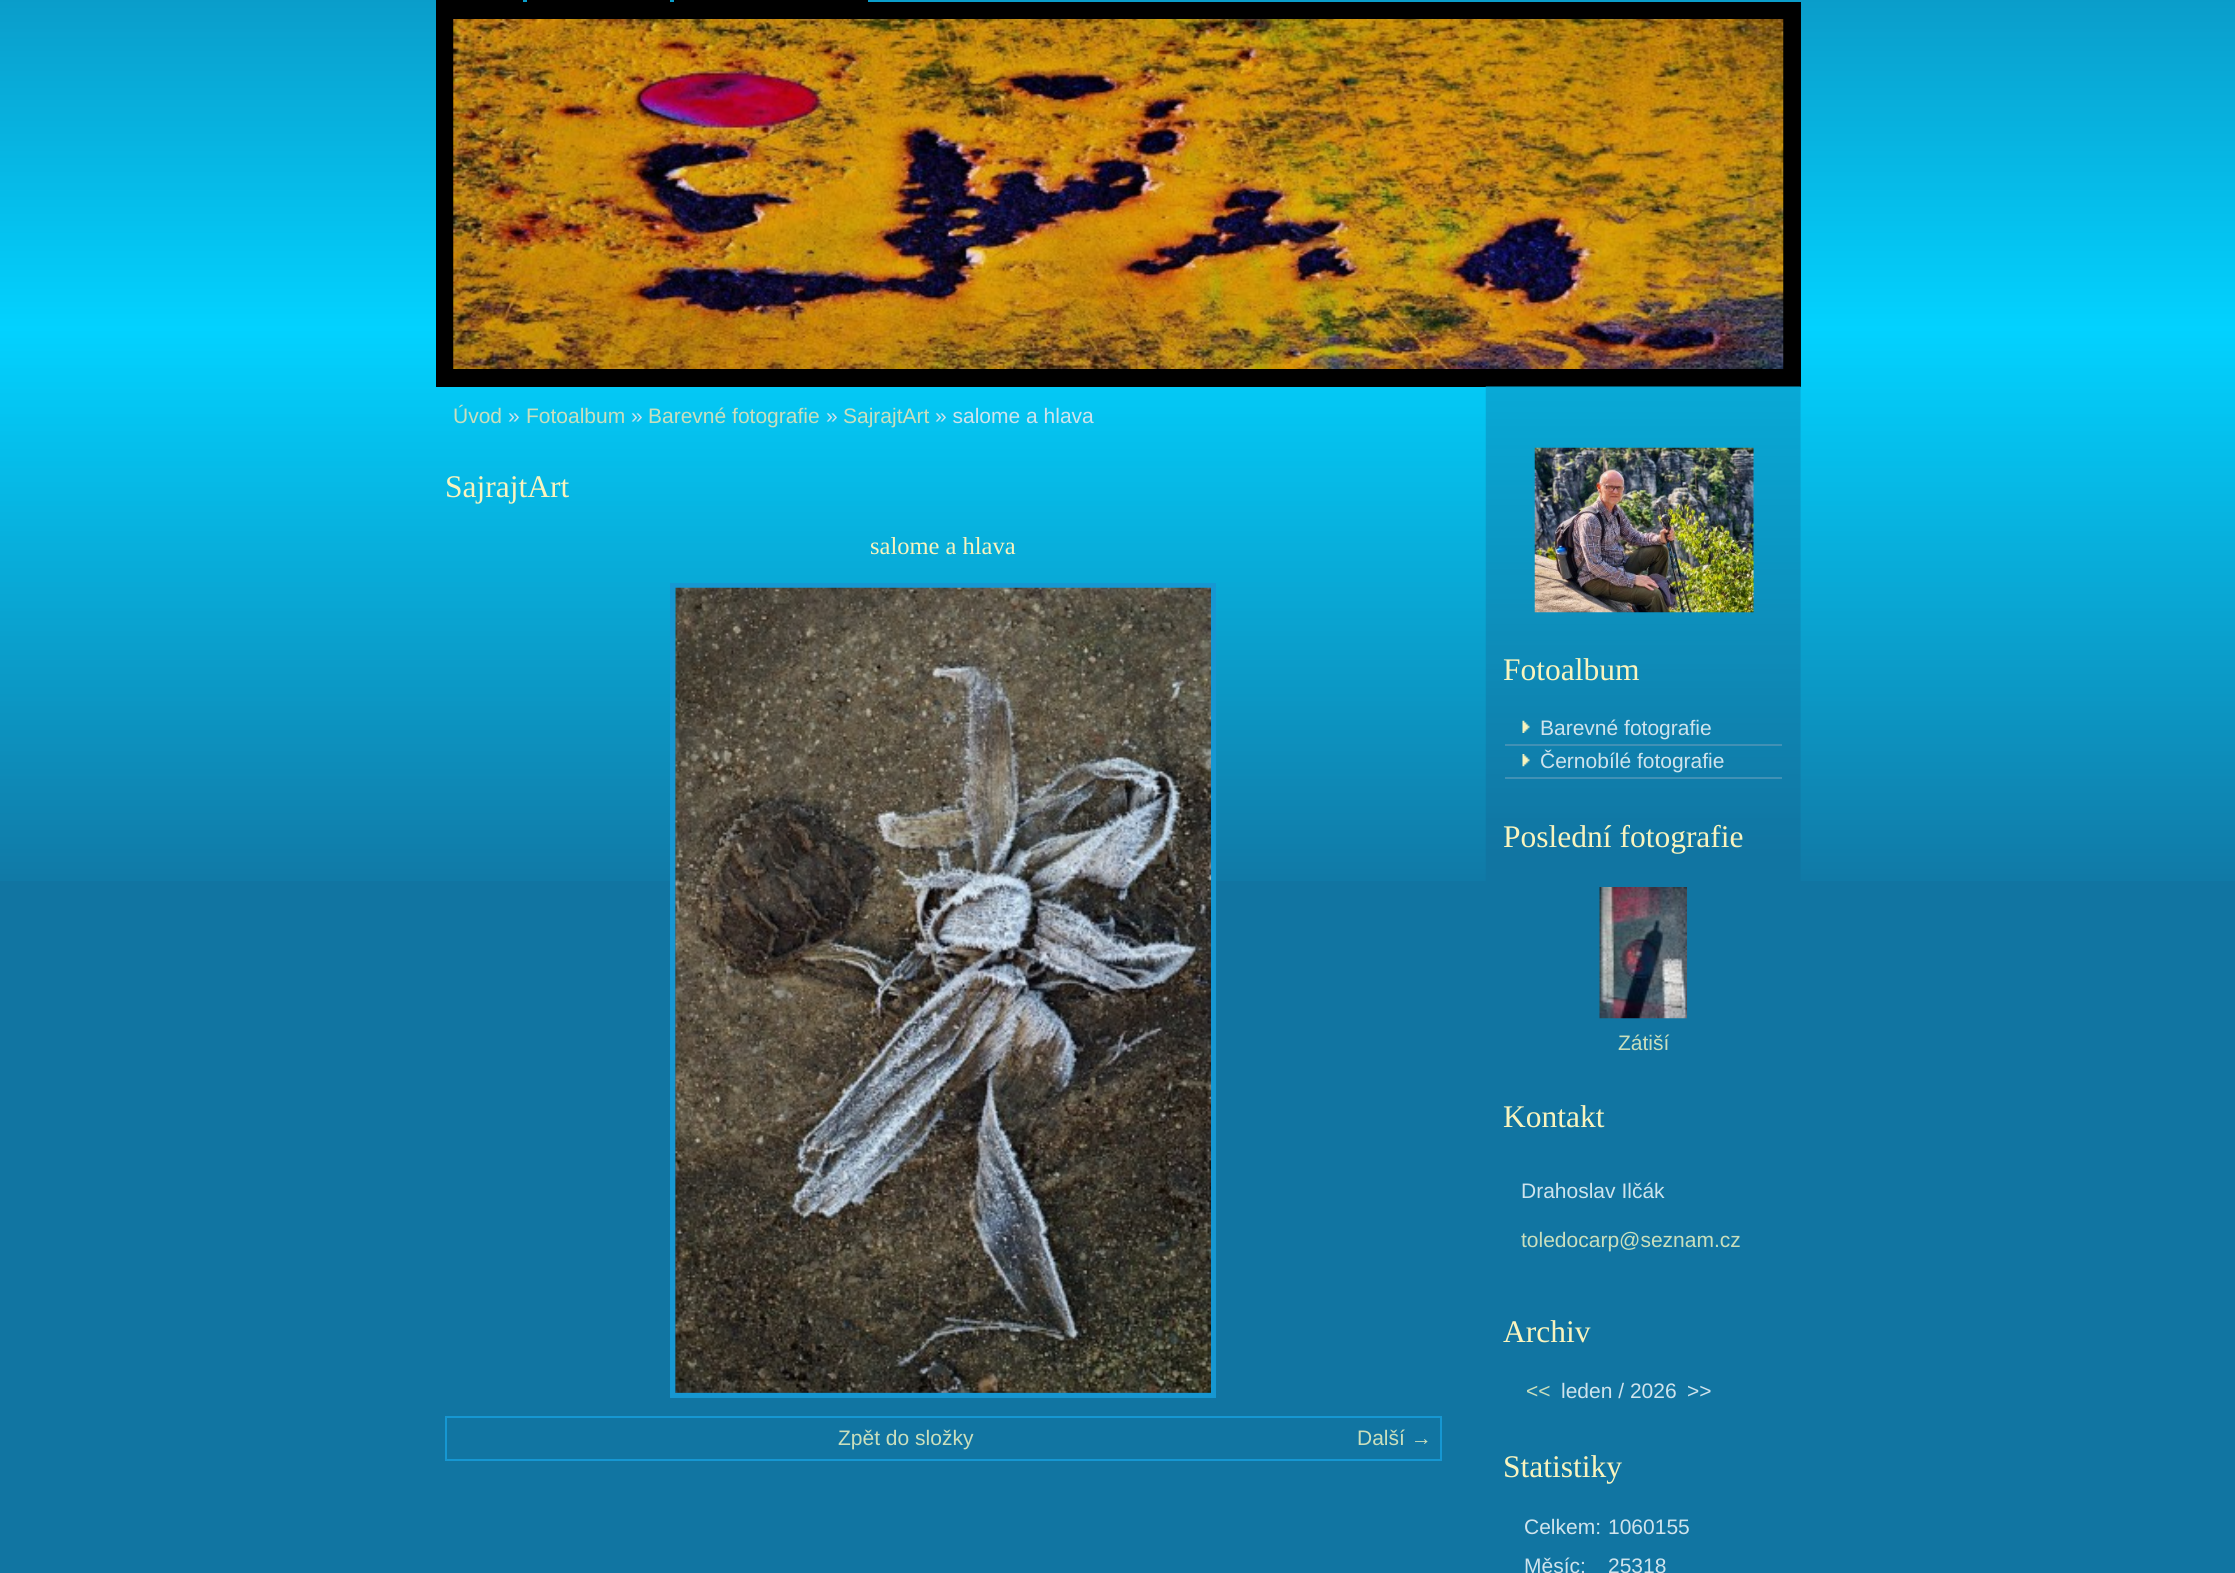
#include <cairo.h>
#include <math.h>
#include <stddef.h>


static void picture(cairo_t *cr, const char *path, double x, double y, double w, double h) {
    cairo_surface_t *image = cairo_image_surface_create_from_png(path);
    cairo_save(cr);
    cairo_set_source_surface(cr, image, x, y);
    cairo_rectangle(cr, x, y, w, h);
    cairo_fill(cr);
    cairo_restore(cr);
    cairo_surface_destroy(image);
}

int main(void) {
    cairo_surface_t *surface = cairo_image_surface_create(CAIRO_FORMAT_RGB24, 2235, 1573);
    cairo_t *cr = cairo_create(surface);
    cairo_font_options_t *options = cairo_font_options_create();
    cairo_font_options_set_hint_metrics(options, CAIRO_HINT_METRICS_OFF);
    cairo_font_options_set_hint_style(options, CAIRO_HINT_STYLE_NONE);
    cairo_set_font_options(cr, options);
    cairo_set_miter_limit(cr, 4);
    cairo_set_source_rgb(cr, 0.067, 0.459, 0.635);
    cairo_paint(cr);
    picture(cr, "img1.png", 0, 0, 2235, 881);
    cairo_set_source_rgb(cr, 0, 0, 0);
    cairo_rectangle(cr, 436, 0, 87, 2);
    cairo_fill(cr);
    cairo_rectangle(cr, 527, 0, 143, 2);
    cairo_fill(cr);
    cairo_rectangle(cr, 674, 0, 194, 2);
    cairo_fill(cr);
    cairo_rectangle(cr, 436, 2, 1365, 385);
    cairo_fill(cr);
    picture(cr, "img2.png", 453, 19, 1331, 350);
    cairo_select_font_face(cr, "Liberation Sans", CAIRO_FONT_SLANT_NORMAL, CAIRO_FONT_WEIGHT_NORMAL);
    cairo_set_font_size(cr, 21);
    cairo_set_source_rgb(cr, 0.788, 0.875, 0.741);
    cairo_move_to(cr, 453, 423);
    cairo_show_text(cr, "Úvod");
    cairo_set_source_rgb(cr, 0.812, 0.89, 0.925);
    cairo_move_to(cr, 508, 423);
    cairo_show_text(cr, "»");
    cairo_set_source_rgb(cr, 0.788, 0.875, 0.741);
    cairo_move_to(cr, 526, 423);
    cairo_show_text(cr, "Fotoalbum");
    cairo_set_source_rgb(cr, 0.812, 0.89, 0.925);
    cairo_move_to(cr, 631, 423);
    cairo_show_text(cr, "»");
    cairo_set_source_rgb(cr, 0.788, 0.875, 0.741);
    cairo_move_to(cr, 648, 423);
    cairo_show_text(cr, "Barevné fotografie");
    cairo_set_source_rgb(cr, 0.812, 0.89, 0.925);
    cairo_move_to(cr, 826, 423);
    cairo_show_text(cr, "»");
    cairo_set_source_rgb(cr, 0.788, 0.875, 0.741);
    cairo_move_to(cr, 843, 423);
    cairo_show_text(cr, "SajrajtArt");
    cairo_set_source_rgb(cr, 0.812, 0.89, 0.925);
    cairo_move_to(cr, 935, 423);
    cairo_show_text(cr, "» salome a hlava");
    cairo_select_font_face(cr, "Liberation Serif", CAIRO_FONT_SLANT_NORMAL, CAIRO_FONT_WEIGHT_NORMAL);
    cairo_set_font_size(cr, 31.5);
    cairo_set_source_rgb(cr, 0.973, 0.957, 0.745);
    cairo_move_to(cr, 445, 497);
    cairo_show_text(cr, "SajrajtArt");
    cairo_set_font_size(cr, 24.5);
    cairo_move_to(cr, 870, 554);
    cairo_show_text(cr, "salome a hlava");
    cairo_rectangle(cr, 672.5, 585.5, 541, 810);
    cairo_set_source_rgb(cr, 0.086, 0.592, 0.824);
    cairo_set_line_width(cr, 5);
    cairo_stroke(cr);
    picture(cr, "img3.png", 675, 587, 536, 806);
    cairo_rectangle(cr, 446, 1417, 995, 43);
    cairo_set_line_width(cr, 2);
    cairo_stroke(cr);
    cairo_select_font_face(cr, "Liberation Sans", CAIRO_FONT_SLANT_NORMAL, CAIRO_FONT_WEIGHT_NORMAL);
    cairo_set_font_size(cr, 21);
    cairo_set_source_rgb(cr, 0.788, 0.875, 0.741);
    cairo_move_to(cr, 838, 1445);
    cairo_show_text(cr, "Zpět do složky");
    cairo_move_to(cr, 1357, 1445);
    cairo_show_text(cr, "Další →");
    picture(cr, "img4.png", 1485, 386, 316, 495);
    picture(cr, "img5.png", 1534, 447, 220, 166);
    cairo_select_font_face(cr, "Liberation Serif", CAIRO_FONT_SLANT_NORMAL, CAIRO_FONT_WEIGHT_NORMAL);
    cairo_set_font_size(cr, 31.5);
    cairo_set_source_rgb(cr, 0.973, 0.957, 0.745);
    cairo_move_to(cr, 1503, 680);
    cairo_show_text(cr, "Fotoalbum");
    picture(cr, "img6.png", 1522, 720, 8, 13);
    cairo_set_source_rgb(cr, 0.255, 0.569, 0.71);
    cairo_rectangle(cr, 1505, 744, 277, 2);
    cairo_fill(cr);
    cairo_select_font_face(cr, "Liberation Sans", CAIRO_FONT_SLANT_NORMAL, CAIRO_FONT_WEIGHT_NORMAL);
    cairo_set_font_size(cr, 21);
    cairo_set_source_rgb(cr, 0.812, 0.89, 0.925);
    cairo_move_to(cr, 1540, 735);
    cairo_show_text(cr, "Barevné fotografie");
    picture(cr, "img7.png", 1522, 754, 8, 13);
    cairo_set_source_rgb(cr, 0.255, 0.569, 0.71);
    cairo_rectangle(cr, 1505, 777, 277, 2);
    cairo_fill(cr);
    cairo_set_source_rgb(cr, 0.812, 0.89, 0.925);
    cairo_move_to(cr, 1540, 768);
    cairo_show_text(cr, "Černobílé fotografie");
    cairo_select_font_face(cr, "Liberation Serif", CAIRO_FONT_SLANT_NORMAL, CAIRO_FONT_WEIGHT_NORMAL);
    cairo_set_font_size(cr, 31.5);
    cairo_set_source_rgb(cr, 0.973, 0.957, 0.745);
    cairo_move_to(cr, 1503, 847);
    cairo_show_text(cr, "Poslední fotografie");
    picture(cr, "img8.png", 1599, 887, 88, 132);
    cairo_select_font_face(cr, "Liberation Sans", CAIRO_FONT_SLANT_NORMAL, CAIRO_FONT_WEIGHT_NORMAL);
    cairo_set_font_size(cr, 21);
    cairo_set_source_rgb(cr, 0.788, 0.875, 0.741);
    cairo_move_to(cr, 1618, 1050);
    cairo_show_text(cr, "Zátiší");
    cairo_select_font_face(cr, "Liberation Serif", CAIRO_FONT_SLANT_NORMAL, CAIRO_FONT_WEIGHT_NORMAL);
    cairo_set_font_size(cr, 31.5);
    cairo_set_source_rgb(cr, 0.973, 0.957, 0.745);
    cairo_move_to(cr, 1503, 1127);
    cairo_show_text(cr, "Kontakt");
    cairo_select_font_face(cr, "Liberation Sans", CAIRO_FONT_SLANT_NORMAL, CAIRO_FONT_WEIGHT_NORMAL);
    cairo_set_font_size(cr, 21);
    cairo_set_source_rgb(cr, 0.812, 0.89, 0.925);
    cairo_move_to(cr, 1521, 1198);
    cairo_show_text(cr, "Drahoslav Ilčák");
    cairo_set_source_rgb(cr, 0.788, 0.875, 0.741);
    cairo_move_to(cr, 1521, 1247);
    cairo_show_text(cr, "toledocarp@seznam.cz");
    cairo_select_font_face(cr, "Liberation Serif", CAIRO_FONT_SLANT_NORMAL, CAIRO_FONT_WEIGHT_NORMAL);
    cairo_set_font_size(cr, 31.5);
    cairo_set_source_rgb(cr, 0.973, 0.957, 0.745);
    cairo_move_to(cr, 1503, 1342);
    cairo_show_text(cr, "Archiv");
    cairo_select_font_face(cr, "Liberation Sans", CAIRO_FONT_SLANT_NORMAL, CAIRO_FONT_WEIGHT_NORMAL);
    cairo_set_font_size(cr, 21);
    cairo_set_source_rgb(cr, 0.788, 0.875, 0.741);
    cairo_move_to(cr, 1526, 1398);
    cairo_show_text(cr, "<<");
    cairo_set_source_rgb(cr, 0.812, 0.89, 0.925);
    cairo_move_to(cr, 1561, 1398);
    cairo_show_text(cr, "leden / 2026");
    cairo_move_to(cr, 1687, 1398);
    cairo_show_text(cr, ">>");
    cairo_select_font_face(cr, "Liberation Serif", CAIRO_FONT_SLANT_NORMAL, CAIRO_FONT_WEIGHT_NORMAL);
    cairo_set_font_size(cr, 31.5);
    cairo_set_source_rgb(cr, 0.973, 0.957, 0.745);
    cairo_move_to(cr, 1503, 1477);
    cairo_show_text(cr, "Statistiky");
    cairo_select_font_face(cr, "Liberation Sans", CAIRO_FONT_SLANT_NORMAL, CAIRO_FONT_WEIGHT_NORMAL);
    cairo_set_font_size(cr, 21);
    cairo_set_source_rgb(cr, 0.812, 0.89, 0.925);
    cairo_move_to(cr, 1524, 1534);
    cairo_show_text(cr, "Celkem:");
    cairo_move_to(cr, 1608, 1534);
    cairo_show_text(cr, "1060155");
    cairo_move_to(cr, 1524, 1573);
    cairo_show_text(cr, "Měsíc:");
    cairo_move_to(cr, 1608, 1573);
    cairo_show_text(cr, "25318");
    cairo_surface_write_to_png(surface, "page.png");
    cairo_font_options_destroy(options);
    cairo_destroy(cr);
    cairo_surface_destroy(surface);
    return 0;
}
